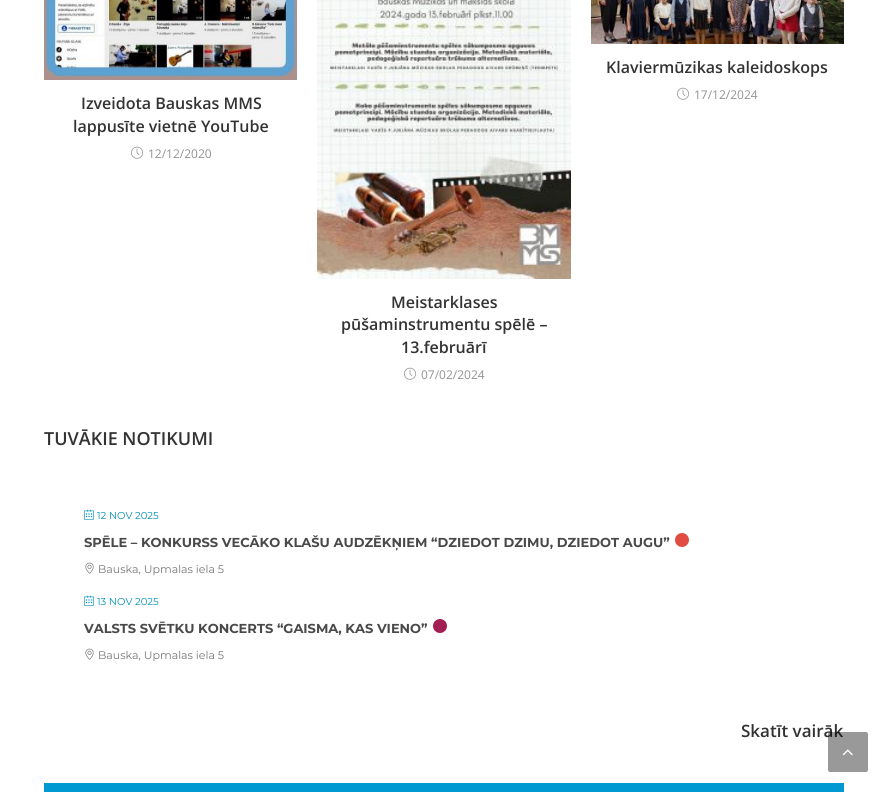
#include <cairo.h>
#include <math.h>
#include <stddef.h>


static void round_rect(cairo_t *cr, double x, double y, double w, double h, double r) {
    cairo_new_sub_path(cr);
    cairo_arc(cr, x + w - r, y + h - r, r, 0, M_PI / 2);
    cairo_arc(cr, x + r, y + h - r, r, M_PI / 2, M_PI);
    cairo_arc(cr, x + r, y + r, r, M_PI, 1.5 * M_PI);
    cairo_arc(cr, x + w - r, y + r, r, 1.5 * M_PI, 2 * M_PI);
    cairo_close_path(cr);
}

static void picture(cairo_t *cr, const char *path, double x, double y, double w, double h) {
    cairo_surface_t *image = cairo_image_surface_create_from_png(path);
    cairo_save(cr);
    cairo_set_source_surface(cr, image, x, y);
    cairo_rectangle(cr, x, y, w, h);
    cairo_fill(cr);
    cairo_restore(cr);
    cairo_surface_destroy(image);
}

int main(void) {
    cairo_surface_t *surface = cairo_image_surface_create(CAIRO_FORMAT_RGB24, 888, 792);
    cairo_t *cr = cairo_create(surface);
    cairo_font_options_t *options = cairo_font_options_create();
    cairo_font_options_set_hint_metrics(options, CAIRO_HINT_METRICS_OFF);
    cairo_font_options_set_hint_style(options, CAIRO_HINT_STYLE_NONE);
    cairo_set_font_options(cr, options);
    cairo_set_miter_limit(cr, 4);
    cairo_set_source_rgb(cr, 1, 1, 1);
    cairo_paint(cr);
    picture(cr, "img1.png", 591, 0, 253, 44);
    cairo_select_font_face(cr, "Open Sans SemiBold", CAIRO_FONT_SLANT_NORMAL, CAIRO_FONT_WEIGHT_NORMAL);
    cairo_set_font_size(cr, 16);
    cairo_set_source_rgb(cr, 0.2, 0.2, 0.2);
    cairo_move_to(cr, 606, 73);
    cairo_show_text(cr, "Klaviermūzikas kaleidoskops");
    picture(cr, "img2.png", 677, 87, 12, 13);
    cairo_select_font_face(cr, "Open Sans", CAIRO_FONT_SLANT_NORMAL, CAIRO_FONT_WEIGHT_NORMAL);
    cairo_set_font_size(cr, 12);
    cairo_set_source_rgb(cr, 0.573, 0.573, 0.573);
    cairo_move_to(cr, 694, 99);
    cairo_show_text(cr, "17/12/2024");
    picture(cr, "img3.png", 44, 0, 253, 80);
    cairo_select_font_face(cr, "Open Sans SemiBold", CAIRO_FONT_SLANT_NORMAL, CAIRO_FONT_WEIGHT_NORMAL);
    cairo_set_font_size(cr, 16);
    cairo_set_source_rgb(cr, 0.2, 0.2, 0.2);
    cairo_move_to(cr, 81, 109);
    cairo_show_text(cr, "Izveidota Bauskas MMS");
    cairo_move_to(cr, 73, 132);
    cairo_show_text(cr, "lappusīte vietnē YouTube");
    picture(cr, "img2.png", 131, 146, 12, 13);
    cairo_select_font_face(cr, "Open Sans", CAIRO_FONT_SLANT_NORMAL, CAIRO_FONT_WEIGHT_NORMAL);
    cairo_set_font_size(cr, 12);
    cairo_set_source_rgb(cr, 0.573, 0.573, 0.573);
    cairo_move_to(cr, 148, 158);
    cairo_show_text(cr, "12/12/2020");
    picture(cr, "img4.png", 317, 0, 254, 279);
    cairo_select_font_face(cr, "Open Sans SemiBold", CAIRO_FONT_SLANT_NORMAL, CAIRO_FONT_WEIGHT_NORMAL);
    cairo_set_font_size(cr, 16);
    cairo_set_source_rgb(cr, 0.2, 0.2, 0.2);
    cairo_move_to(cr, 391, 308);
    cairo_show_text(cr, "Meistarklases");
    cairo_move_to(cr, 341, 330);
    cairo_show_text(cr, "pūšaminstrumentu spēlē –");
    cairo_move_to(cr, 401, 353);
    cairo_show_text(cr, "13.februārī");
    picture(cr, "img2.png", 404, 367, 12, 13);
    cairo_select_font_face(cr, "Open Sans", CAIRO_FONT_SLANT_NORMAL, CAIRO_FONT_WEIGHT_NORMAL);
    cairo_set_font_size(cr, 12);
    cairo_set_source_rgb(cr, 0.573, 0.573, 0.573);
    cairo_move_to(cr, 421, 379);
    cairo_show_text(cr, "07/02/2024");
    cairo_select_font_face(cr, "Open Sans SemiBold", CAIRO_FONT_SLANT_NORMAL, CAIRO_FONT_WEIGHT_NORMAL);
    cairo_set_font_size(cr, 18);
    cairo_set_source_rgb(cr, 0.2, 0.2, 0.2);
    cairo_move_to(cr, 44, 445);
    cairo_show_text(cr, "TUVĀKIE NOTIKUMI");
    picture(cr, "img5.png", 84, 509, 10, 11);
    cairo_select_font_face(cr, "Montserrat", CAIRO_FONT_SLANT_NORMAL, CAIRO_FONT_WEIGHT_NORMAL);
    cairo_set_font_size(cr, 10);
    cairo_set_source_rgb(cr, 0, 0.557, 0.729);
    cairo_move_to(cr, 97, 519);
    cairo_show_text(cr, "12 NOV 2025");
    cairo_select_font_face(cr, "Montserrat", CAIRO_FONT_SLANT_NORMAL, CAIRO_FONT_WEIGHT_BOLD);
    cairo_set_font_size(cr, 13);
    cairo_set_source_rgb(cr, 0.286, 0.286, 0.286);
    cairo_move_to(cr, 84, 547);
    cairo_show_text(cr, "SPĒLE – KONKURSS VECĀKO KLAŠU AUDZĒKŅIEM “DZIEDOT DZIMU, DZIEDOT AUGU”");
    cairo_set_source_rgb(cr, 0.882, 0.302, 0.263);
    cairo_new_path(cr);
    cairo_arc(cr, 682, 540, 7, 0, 2 * M_PI);
    cairo_fill(cr);
    picture(cr, "img6.png", 85, 562, 9, 12);
    cairo_select_font_face(cr, "Montserrat", CAIRO_FONT_SLANT_NORMAL, CAIRO_FONT_WEIGHT_NORMAL);
    cairo_set_font_size(cr, 11);
    cairo_set_source_rgb(cr, 0.467, 0.467, 0.467);
    cairo_move_to(cr, 98, 573);
    cairo_show_text(cr, "Bauska, Upmalas iela 5");
    picture(cr, "img5.png", 84, 595, 10, 11);
    cairo_set_font_size(cr, 10);
    cairo_set_source_rgb(cr, 0, 0.557, 0.729);
    cairo_move_to(cr, 97, 605);
    cairo_show_text(cr, "13 NOV 2025");
    cairo_select_font_face(cr, "Montserrat", CAIRO_FONT_SLANT_NORMAL, CAIRO_FONT_WEIGHT_BOLD);
    cairo_set_font_size(cr, 13);
    cairo_set_source_rgb(cr, 0.286, 0.286, 0.286);
    cairo_move_to(cr, 84, 633);
    cairo_show_text(cr, "VALSTS SVĒTKU KONCERTS “GAISMA, KAS VIENO”");
    cairo_set_source_rgb(cr, 0.639, 0.122, 0.325);
    cairo_new_path(cr);
    cairo_arc(cr, 440, 626, 7, 0, 2 * M_PI);
    cairo_fill(cr);
    picture(cr, "img6.png", 85, 648, 9, 12);
    cairo_select_font_face(cr, "Montserrat", CAIRO_FONT_SLANT_NORMAL, CAIRO_FONT_WEIGHT_NORMAL);
    cairo_set_font_size(cr, 11);
    cairo_set_source_rgb(cr, 0.467, 0.467, 0.467);
    cairo_move_to(cr, 98, 659);
    cairo_show_text(cr, "Bauska, Upmalas iela 5");
    cairo_select_font_face(cr, "Open Sans SemiBold", CAIRO_FONT_SLANT_NORMAL, CAIRO_FONT_WEIGHT_NORMAL);
    cairo_set_font_size(cr, 17);
    cairo_set_source_rgb(cr, 0.2, 0.2, 0.2);
    cairo_move_to(cr, 741, 737);
    cairo_show_text(cr, "Skatīt vairāk");
    cairo_set_source_rgb(cr, 0, 0.6, 0.824);
    cairo_rectangle(cr, 44, 783, 800, 9);
    cairo_fill(cr);
    cairo_set_source_rgba(cr, 0, 0, 0, 0.4);
    round_rect(cr, 828, 732, 40, 40, 2);
    cairo_fill(cr);
    picture(cr, "img7.png", 842, 749, 11, 7);
    cairo_surface_write_to_png(surface, "page.png");
    cairo_font_options_destroy(options);
    cairo_destroy(cr);
    cairo_surface_destroy(surface);
    return 0;
}
